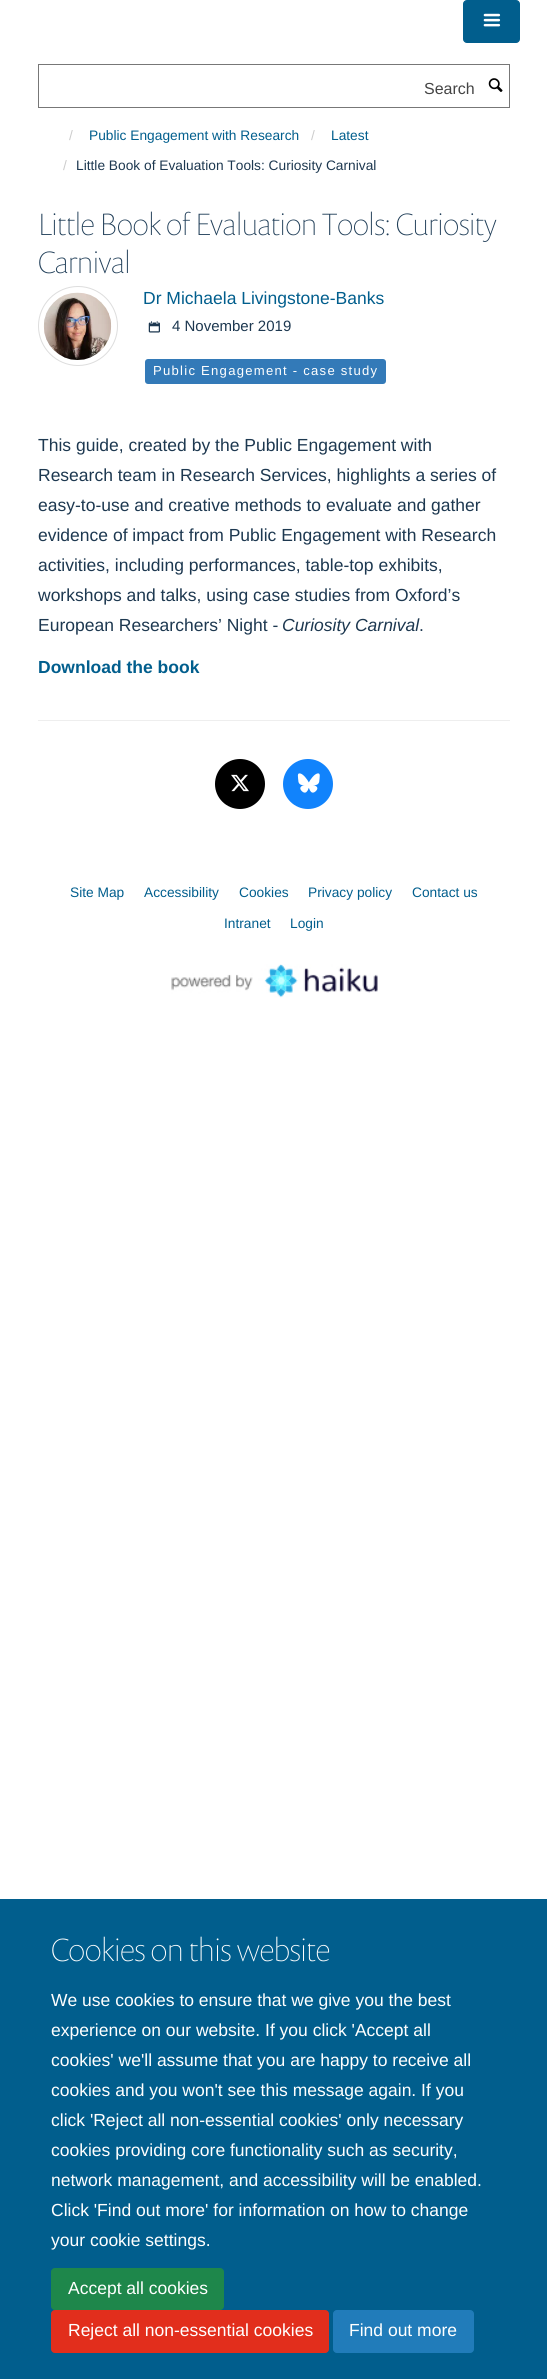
#include <cairo.h>
#include <math.h>
#include <stddef.h>


static void spaced_text(cairo_t *cr, double x, double y, const char *s, double letter, double word) {
    cairo_move_to(cr, x, y);
    while (*s) {
        char ch[5] = {0};
        int n = 0;
        do ch[n++] = *s++; while ((*s & 0xC0) == 0x80);
        cairo_show_text(cr, ch);
        cairo_rel_move_to(cr, letter + word * (*ch == ' '), 0);
    }
}

static void round_rect(cairo_t *cr, double x, double y, double w, double h, double r) {
    cairo_new_sub_path(cr);
    cairo_arc(cr, x + w - r, y + h - r, r, 0, M_PI / 2);
    cairo_arc(cr, x + r, y + h - r, r, M_PI / 2, M_PI);
    cairo_arc(cr, x + r, y + r, r, M_PI, 1.5 * M_PI);
    cairo_arc(cr, x + w - r, y + r, r, 1.5 * M_PI, 2 * M_PI);
    cairo_close_path(cr);
}

static void picture(cairo_t *cr, const char *path, double x, double y, double w, double h) {
    cairo_surface_t *image = cairo_image_surface_create_from_png(path);
    cairo_save(cr);
    cairo_set_source_surface(cr, image, x, y);
    cairo_rectangle(cr, x, y, w, h);
    cairo_fill(cr);
    cairo_restore(cr);
    cairo_surface_destroy(image);
}

int main(void) {
    cairo_surface_t *surface = cairo_image_surface_create(CAIRO_FORMAT_RGB24, 547, 2379);
    cairo_t *cr = cairo_create(surface);
    cairo_font_options_t *options = cairo_font_options_create();
    cairo_font_options_set_hint_metrics(options, CAIRO_HINT_METRICS_OFF);
    cairo_font_options_set_hint_style(options, CAIRO_HINT_STYLE_NONE);
    cairo_set_font_options(cr, options);
    cairo_set_miter_limit(cr, 4);
    cairo_set_source_rgb(cr, 1, 1, 1);
    cairo_paint(cr);
    cairo_set_source_rgb(cr, 0.004, 0.369, 0.553);
    round_rect(cr, 463.5, 0.5, 56, 42, 3.5);
    cairo_fill_preserve(cr);
    cairo_set_line_width(cr, 1);
    cairo_stroke(cr);
    picture(cr, "img1.png", 483, 13, 18, 14);
    cairo_rectangle(cr, 38.5, 64.5, 471, 43);
    cairo_set_source_rgb(cr, 0.467, 0.467, 0.467);
    cairo_stroke(cr);
    cairo_select_font_face(cr, "Liberation Sans", CAIRO_FONT_SLANT_NORMAL, CAIRO_FONT_WEIGHT_NORMAL);
    cairo_set_font_size(cr, 16);
    cairo_set_source_rgb(cr, 0.267, 0.267, 0.267);
    cairo_move_to(cr, 424, 94);
    cairo_show_text(cr, "Search");
    picture(cr, "img2.png", 488, 78, 15, 14);
    cairo_set_font_size(cr, 13.75);
    cairo_set_source_rgb(cr, 0.8, 0.8, 0.8);
    cairo_move_to(cr, 69, 140);
    cairo_show_text(cr, "/");
    cairo_set_source_rgb(cr, 0.004, 0.369, 0.553);
    cairo_move_to(cr, 89, 140);
    cairo_show_text(cr, "Public Engagement with Research");
    cairo_set_source_rgb(cr, 0.8, 0.8, 0.8);
    cairo_move_to(cr, 311, 140);
    cairo_show_text(cr, "/");
    cairo_set_source_rgb(cr, 0.004, 0.369, 0.553);
    cairo_move_to(cr, 331, 140);
    cairo_show_text(cr, "Latest");
    cairo_set_source_rgb(cr, 0.8, 0.8, 0.8);
    cairo_move_to(cr, 63, 170);
    cairo_show_text(cr, "/");
    cairo_set_source_rgb(cr, 0.114, 0.22, 0.314);
    cairo_move_to(cr, 76, 170);
    cairo_show_text(cr, "Little Book of Evaluation Tools: Curiosity Carnival");
    cairo_select_font_face(cr, "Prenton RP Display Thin", CAIRO_FONT_SLANT_NORMAL, CAIRO_FONT_WEIGHT_NORMAL);
    cairo_set_font_size(cr, 31.25);
    cairo_set_source_rgb(cr, 0.125, 0.243, 0.345);
    cairo_move_to(cr, 38, 235);
    cairo_show_text(cr, "Little Book of Evaluation Tools: Curiosity");
    cairo_move_to(cr, 38, 273);
    cairo_show_text(cr, "Carnival");
    cairo_new_path(cr);
    cairo_arc(cr, 78, 326, 39.5, 0, 2 * M_PI);
    cairo_set_source_rgb(cr, 0.867, 0.867, 0.867);
    cairo_stroke(cr);
    picture(cr, "img3.png", 43, 292, 69, 68);
    cairo_select_font_face(cr, "Liberation Sans", CAIRO_FONT_SLANT_NORMAL, CAIRO_FONT_WEIGHT_NORMAL);
    cairo_set_font_size(cr, 17.5);
    cairo_set_source_rgb(cr, 0.004, 0.369, 0.553);
    cairo_move_to(cr, 143, 304);
    cairo_show_text(cr, "Dr Michaela Livingstone-Banks");
    picture(cr, "img4.png", 148, 321, 12, 12);
    cairo_set_font_size(cr, 15);
    cairo_set_source_rgb(cr, 0.114, 0.22, 0.314);
    cairo_move_to(cr, 172, 331);
    cairo_show_text(cr, "4 November 2019");
    cairo_set_source_rgb(cr, 0.2, 0.478, 0.722);
    round_rect(cr, 145, 359, 241, 25, 3);
    cairo_fill(cr);
    cairo_set_font_size(cr, 13.1);
    cairo_set_source_rgb(cr, 1, 1, 1);
    spaced_text(cr, 153, 375, "Public Engagement - case study", 1.25, 0);
    cairo_set_font_size(cr, 17.5);
    cairo_set_source_rgb(cr, 0.114, 0.22, 0.314);
    cairo_move_to(cr, 38, 451);
    cairo_show_text(cr, "This guide, created by the Public Engagement with");
    cairo_move_to(cr, 38, 481);
    cairo_show_text(cr, "Research team in Research Services, highlights a series of");
    cairo_move_to(cr, 38, 511);
    cairo_show_text(cr, "easy-to-use and creative methods to evaluate and gather");
    cairo_move_to(cr, 38, 541);
    cairo_show_text(cr, "evidence of impact from Public Engagement with Research");
    cairo_move_to(cr, 38, 571);
    cairo_show_text(cr, "activities, including performances, table-top exhibits,");
    cairo_move_to(cr, 38, 601);
    cairo_show_text(cr, "workshops and talks, using case studies from Oxford’s");
    cairo_move_to(cr, 38, 631);
    cairo_show_text(cr, "European Researchers’ Night -");
    cairo_select_font_face(cr, "Liberation Sans", CAIRO_FONT_SLANT_ITALIC, CAIRO_FONT_WEIGHT_NORMAL);
    cairo_move_to(cr, 282, 631);
    cairo_show_text(cr, "Curiosity Carnival");
    cairo_select_font_face(cr, "Liberation Sans", CAIRO_FONT_SLANT_NORMAL, CAIRO_FONT_WEIGHT_NORMAL);
    cairo_move_to(cr, 419, 631);
    cairo_show_text(cr, ".");
    cairo_select_font_face(cr, "Liberation Sans", CAIRO_FONT_SLANT_NORMAL, CAIRO_FONT_WEIGHT_BOLD);
    cairo_set_source_rgb(cr, 0.004, 0.369, 0.553);
    cairo_move_to(cr, 38, 673);
    cairo_show_text(cr, "Download the book");
    cairo_set_source_rgb(cr, 0.933, 0.933, 0.933);
    cairo_rectangle(cr, 38, 720, 472, 1);
    cairo_fill(cr);
    cairo_set_source_rgb(cr, 0, 0, 0);
    cairo_arc(cr, 240, 784, 25, 0, 2 * M_PI);
    cairo_fill(cr);
    picture(cr, "img5.png", 231, 774, 18, 18);
    cairo_set_source_rgb(cr, 0.067, 0.514, 0.988);
    cairo_arc(cr, 308, 784, 25, 0, 2 * M_PI);
    cairo_fill(cr);
    picture(cr, "img6.png", 297, 773, 23, 20);
    cairo_select_font_face(cr, "Liberation Sans", CAIRO_FONT_SLANT_NORMAL, CAIRO_FONT_WEIGHT_NORMAL);
    cairo_set_font_size(cr, 13.75);
    cairo_set_source_rgb(cr, 0.004, 0.369, 0.553);
    cairo_move_to(cr, 70, 897);
    cairo_show_text(cr, "Site Map");
    cairo_move_to(cr, 144, 897);
    cairo_show_text(cr, "Accessibility");
    cairo_move_to(cr, 239, 897);
    cairo_show_text(cr, "Cookies");
    cairo_move_to(cr, 308, 897);
    cairo_show_text(cr, "Privacy policy");
    cairo_move_to(cr, 412, 897);
    cairo_show_text(cr, "Contact us");
    cairo_move_to(cr, 224, 928);
    cairo_show_text(cr, "Intranet");
    cairo_move_to(cr, 290, 928);
    cairo_show_text(cr, "Login");
    picture(cr, "img7.png", 171, 964, 207, 34);
    cairo_rectangle(cr, 0, 1899, 547, 480);
    cairo_fill(cr);
    cairo_select_font_face(cr, "Prenton RP Display Thin", CAIRO_FONT_SLANT_NORMAL, CAIRO_FONT_WEIGHT_NORMAL);
    cairo_set_font_size(cr, 32.5);
    cairo_set_source_rgb(cr, 1, 1, 1);
    cairo_move_to(cr, 51, 1961);
    cairo_show_text(cr, "Cookies on this website");
    cairo_select_font_face(cr, "Liberation Sans", CAIRO_FONT_SLANT_NORMAL, CAIRO_FONT_WEIGHT_NORMAL);
    cairo_set_font_size(cr, 17.5);
    cairo_move_to(cr, 51, 2006);
    cairo_show_text(cr, "We use cookies to ensure that we give you the best");
    cairo_move_to(cr, 51, 2036);
    cairo_show_text(cr, "experience on our website. If you click 'Accept all");
    cairo_move_to(cr, 51, 2066);
    cairo_show_text(cr, "cookies' we'll assume that you are happy to receive all");
    cairo_move_to(cr, 51, 2096);
    cairo_show_text(cr, "cookies and you won't see this message again. If you");
    cairo_move_to(cr, 51, 2126);
    cairo_show_text(cr, "click 'Reject all non-essential cookies' only necessary");
    cairo_move_to(cr, 51, 2156);
    cairo_show_text(cr, "cookies providing core functionality such as security,");
    cairo_move_to(cr, 51, 2186);
    cairo_show_text(cr, "network management, and accessibility will be enabled.");
    cairo_move_to(cr, 51, 2216);
    cairo_show_text(cr, "Click 'Find out more' for information on how to change");
    cairo_move_to(cr, 51, 2246);
    cairo_show_text(cr, "your cookie settings.");
    cairo_set_source_rgb(cr, 0.118, 0.529, 0.294);
    round_rect(cr, 51.5, 2268.5, 172, 41, 3.5);
    cairo_fill_preserve(cr);
    cairo_stroke(cr);
    cairo_set_source_rgb(cr, 1, 1, 1);
    cairo_move_to(cr, 68, 2294);
    cairo_show_text(cr, "Accept all cookies");
    cairo_set_source_rgb(cr, 0.886, 0.18, 0.11);
    round_rect(cr, 51.5, 2310.5, 277, 42, 3.5);
    cairo_fill_preserve(cr);
    cairo_stroke(cr);
    cairo_set_source_rgb(cr, 1, 1, 1);
    cairo_move_to(cr, 68, 2336);
    cairo_show_text(cr, "Reject all non-essential cookies");
    cairo_set_source_rgb(cr, 0.129, 0.486, 0.729);
    round_rect(cr, 333.5, 2310.5, 140, 42, 3.5);
    cairo_fill_preserve(cr);
    cairo_stroke(cr);
    cairo_set_source_rgb(cr, 1, 1, 1);
    cairo_move_to(cr, 349, 2336);
    cairo_show_text(cr, "Find out more");
    cairo_surface_write_to_png(surface, "page.png");
    cairo_font_options_destroy(options);
    cairo_destroy(cr);
    cairo_surface_destroy(surface);
    return 0;
}
